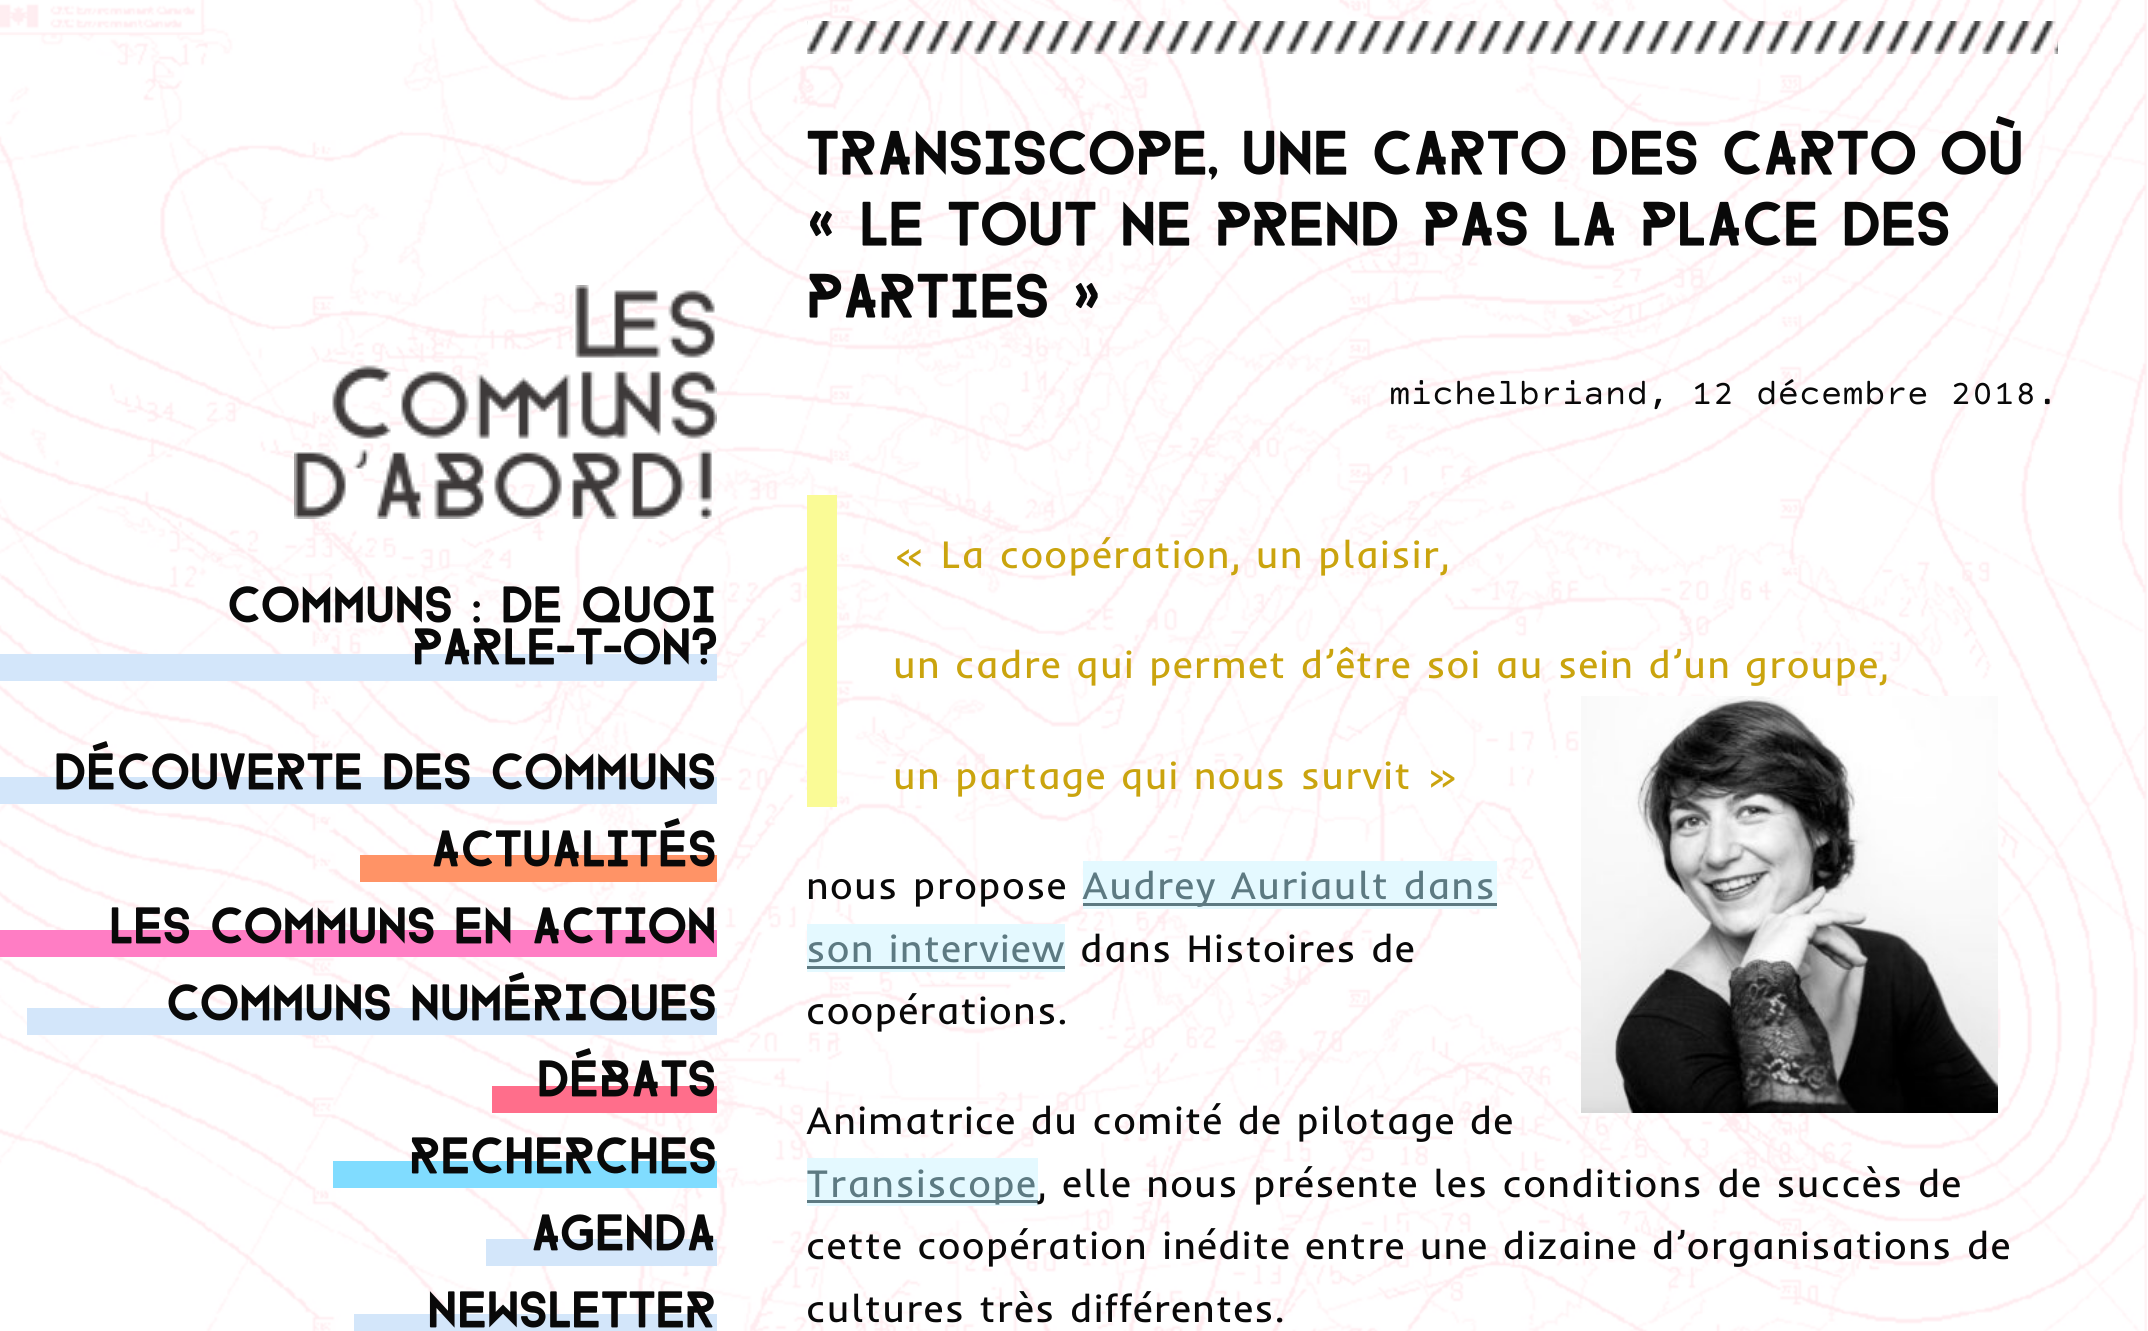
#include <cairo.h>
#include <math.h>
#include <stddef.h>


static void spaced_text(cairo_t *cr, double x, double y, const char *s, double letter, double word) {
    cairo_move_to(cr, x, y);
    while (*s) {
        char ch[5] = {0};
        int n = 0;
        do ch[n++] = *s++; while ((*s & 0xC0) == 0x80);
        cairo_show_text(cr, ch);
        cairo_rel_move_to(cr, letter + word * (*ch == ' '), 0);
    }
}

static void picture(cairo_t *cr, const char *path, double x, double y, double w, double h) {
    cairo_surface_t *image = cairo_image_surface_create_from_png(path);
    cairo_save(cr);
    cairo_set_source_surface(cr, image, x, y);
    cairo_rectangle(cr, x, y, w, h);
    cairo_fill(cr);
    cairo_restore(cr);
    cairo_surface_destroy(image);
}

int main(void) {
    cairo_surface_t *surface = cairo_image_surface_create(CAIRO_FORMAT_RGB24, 2148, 1331);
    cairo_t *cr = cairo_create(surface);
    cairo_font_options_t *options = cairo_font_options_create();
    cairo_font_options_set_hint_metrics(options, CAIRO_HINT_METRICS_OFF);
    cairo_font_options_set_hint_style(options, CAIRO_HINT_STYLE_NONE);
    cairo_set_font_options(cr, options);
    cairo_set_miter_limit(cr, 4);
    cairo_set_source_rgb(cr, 1, 1, 1);
    cairo_paint(cr);
    picture(cr, "img1.png", 0, 0, 2147, 1331);
    picture(cr, "img2.png", 294, 285, 423, 234);
    cairo_select_font_face(cr, "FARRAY", CAIRO_FONT_SLANT_NORMAL, CAIRO_FONT_WEIGHT_NORMAL);
    cairo_set_font_size(cr, 42);
    cairo_set_source_rgb(cr, 0.039, 0.039, 0.039);
    cairo_move_to(cr, 227, 617);
    cairo_show_text(cr, "Communs : de quoi");
    cairo_set_source_rgb(cr, 0.827, 0.902, 0.98);
    cairo_rectangle(cr, 0, 654, 717, 27);
    cairo_fill(cr);
    cairo_set_source_rgb(cr, 0.039, 0.039, 0.039);
    cairo_move_to(cr, 412, 659);
    cairo_show_text(cr, "parle-t-on?");
    cairo_set_source_rgb(cr, 0.827, 0.902, 0.98);
    cairo_rectangle(cr, 0, 777, 717, 27);
    cairo_fill(cr);
    cairo_set_source_rgb(cr, 0.039, 0.039, 0.039);
    cairo_move_to(cr, 54, 784);
    cairo_show_text(cr, "Découverte des communs");
    cairo_set_source_rgb(cr, 1, 0.576, 0.4);
    cairo_rectangle(cr, 360, 855, 357, 27);
    cairo_fill(cr);
    cairo_set_source_rgb(cr, 0.039, 0.039, 0.039);
    cairo_move_to(cr, 431, 861);
    cairo_show_text(cr, "Actualités");
    cairo_set_source_rgb(cr, 1, 0.49, 0.769);
    cairo_rectangle(cr, 0, 930, 717, 27);
    cairo_fill(cr);
    cairo_set_source_rgb(cr, 0.039, 0.039, 0.039);
    cairo_move_to(cr, 108, 938);
    cairo_show_text(cr, "Les communs en action");
    cairo_set_source_rgb(cr, 0.827, 0.902, 0.98);
    cairo_rectangle(cr, 27, 1008, 690, 27);
    cairo_fill(cr);
    cairo_set_source_rgb(cr, 0.039, 0.039, 0.039);
    cairo_move_to(cr, 166, 1015);
    cairo_show_text(cr, "Communs numériques");
    cairo_set_source_rgb(cr, 1, 0.431, 0.545);
    cairo_rectangle(cr, 492, 1086, 225, 27);
    cairo_fill(cr);
    cairo_set_source_rgb(cr, 0.039, 0.039, 0.039);
    cairo_move_to(cr, 537, 1091);
    cairo_show_text(cr, "Débats");
    cairo_set_source_rgb(cr, 0.502, 0.863, 1);
    cairo_rectangle(cr, 333, 1161, 384, 27);
    cairo_fill(cr);
    cairo_set_source_rgb(cr, 0.039, 0.039, 0.039);
    cairo_move_to(cr, 409, 1168);
    cairo_show_text(cr, "Recherches");
    cairo_set_source_rgb(cr, 0.827, 0.902, 0.98);
    cairo_rectangle(cr, 486, 1239, 231, 27);
    cairo_fill(cr);
    cairo_set_source_rgb(cr, 0.039, 0.039, 0.039);
    cairo_move_to(cr, 531, 1245);
    cairo_show_text(cr, "Agenda");
    cairo_set_source_rgb(cr, 0.827, 0.902, 0.98);
    cairo_rectangle(cr, 354, 1314, 363, 17);
    cairo_fill(cr);
    cairo_set_source_rgb(cr, 0.039, 0.039, 0.039);
    cairo_move_to(cr, 427, 1322);
    cairo_show_text(cr, "Newsletter");
    picture(cr, "img3.png", 807, 21, 1251, 33);
    cairo_set_font_size(cr, 51);
    cairo_move_to(cr, 806, 168);
    cairo_show_text(cr, "Transiscope, une carto des carto où");
    cairo_move_to(cr, 806, 239);
    cairo_show_text(cr, "« le tout ne prend pas la place des");
    cairo_move_to(cr, 806, 311);
    cairo_show_text(cr, "parties »");
    cairo_select_font_face(cr, "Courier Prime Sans", CAIRO_FONT_SLANT_NORMAL, CAIRO_FONT_WEIGHT_NORMAL);
    cairo_set_font_size(cr, 36);
    cairo_move_to(cr, 1389, 404);
    cairo_show_text(cr, "michelbriand, 12 décembre 2018.");
    cairo_set_source_rgb(cr, 0.98, 0.984, 0.588);
    cairo_rectangle(cr, 807, 495, 30, 312);
    cairo_fill(cr);
    cairo_select_font_face(cr, "Inder", CAIRO_FONT_SLANT_NORMAL, CAIRO_FONT_WEIGHT_NORMAL);
    cairo_set_font_size(cr, 39);
    cairo_set_source_rgb(cr, 0.792, 0.643, 0.055);
    spaced_text(cr, 893, 568, "« La coopération, un plaisir,", 1.2, 0);
    spaced_text(cr, 893, 678, "un cadre qui permet d’être soi au sein d’un groupe,", 1.2, 0);
    picture(cr, "img4.png", 1581, 696, 417, 417);
    spaced_text(cr, 893, 789, "un partage qui nous survit »", 1.2, 0);
    cairo_set_source_rgb(cr, 0.039, 0.039, 0.039);
    spaced_text(cr, 806, 899, "nous propose", 1.2, 0);
    cairo_set_source_rgb(cr, 0.894, 0.976, 1);
    cairo_rectangle(cr, 1083, 861, 414, 48);
    cairo_fill(cr);
    cairo_set_source_rgb(cr, 0.365, 0.478, 0.51);
    cairo_rectangle(cr, 1083, 903, 414, 3);
    cairo_fill(cr);
    spaced_text(cr, 1082, 899, "Audrey Auriault dans", 1.2, 0);
    cairo_set_source_rgb(cr, 0.894, 0.976, 1);
    cairo_rectangle(cr, 807, 924, 258, 48);
    cairo_fill(cr);
    cairo_set_source_rgb(cr, 0.365, 0.478, 0.51);
    spaced_text(cr, 806, 962, "son interview", 1.2, 0);
    cairo_rectangle(cr, 807, 966, 258, 3);
    cairo_fill(cr);
    cairo_set_source_rgb(cr, 0.039, 0.039, 0.039);
    spaced_text(cr, 1080, 962, "dans Histoires de", 1.2, 0);
    spaced_text(cr, 806, 1024, "coopérations.", 1.2, 0);
    spaced_text(cr, 806, 1134, "Animatrice du comité de pilotage de", 1.2, 0);
    cairo_set_source_rgb(cr, 0.894, 0.976, 1);
    cairo_rectangle(cr, 807, 1158, 231, 48);
    cairo_fill(cr);
    cairo_set_source_rgb(cr, 0.365, 0.478, 0.51);
    cairo_rectangle(cr, 807, 1200, 231, 3);
    cairo_fill(cr);
    spaced_text(cr, 806, 1197, "Transiscope", 1.2, 0);
    cairo_set_source_rgb(cr, 0.039, 0.039, 0.039);
    spaced_text(cr, 1037, 1197, ", elle nous présente les conditions de succès de", 1.2, 0);
    spaced_text(cr, 806, 1259, "cette coopération inédite entre une dizaine d’organisations de", 1.2, 0);
    spaced_text(cr, 806, 1322, "cultures très différentes.", 1.2, 0);
    cairo_surface_write_to_png(surface, "page.png");
    cairo_font_options_destroy(options);
    cairo_destroy(cr);
    cairo_surface_destroy(surface);
    return 0;
}
